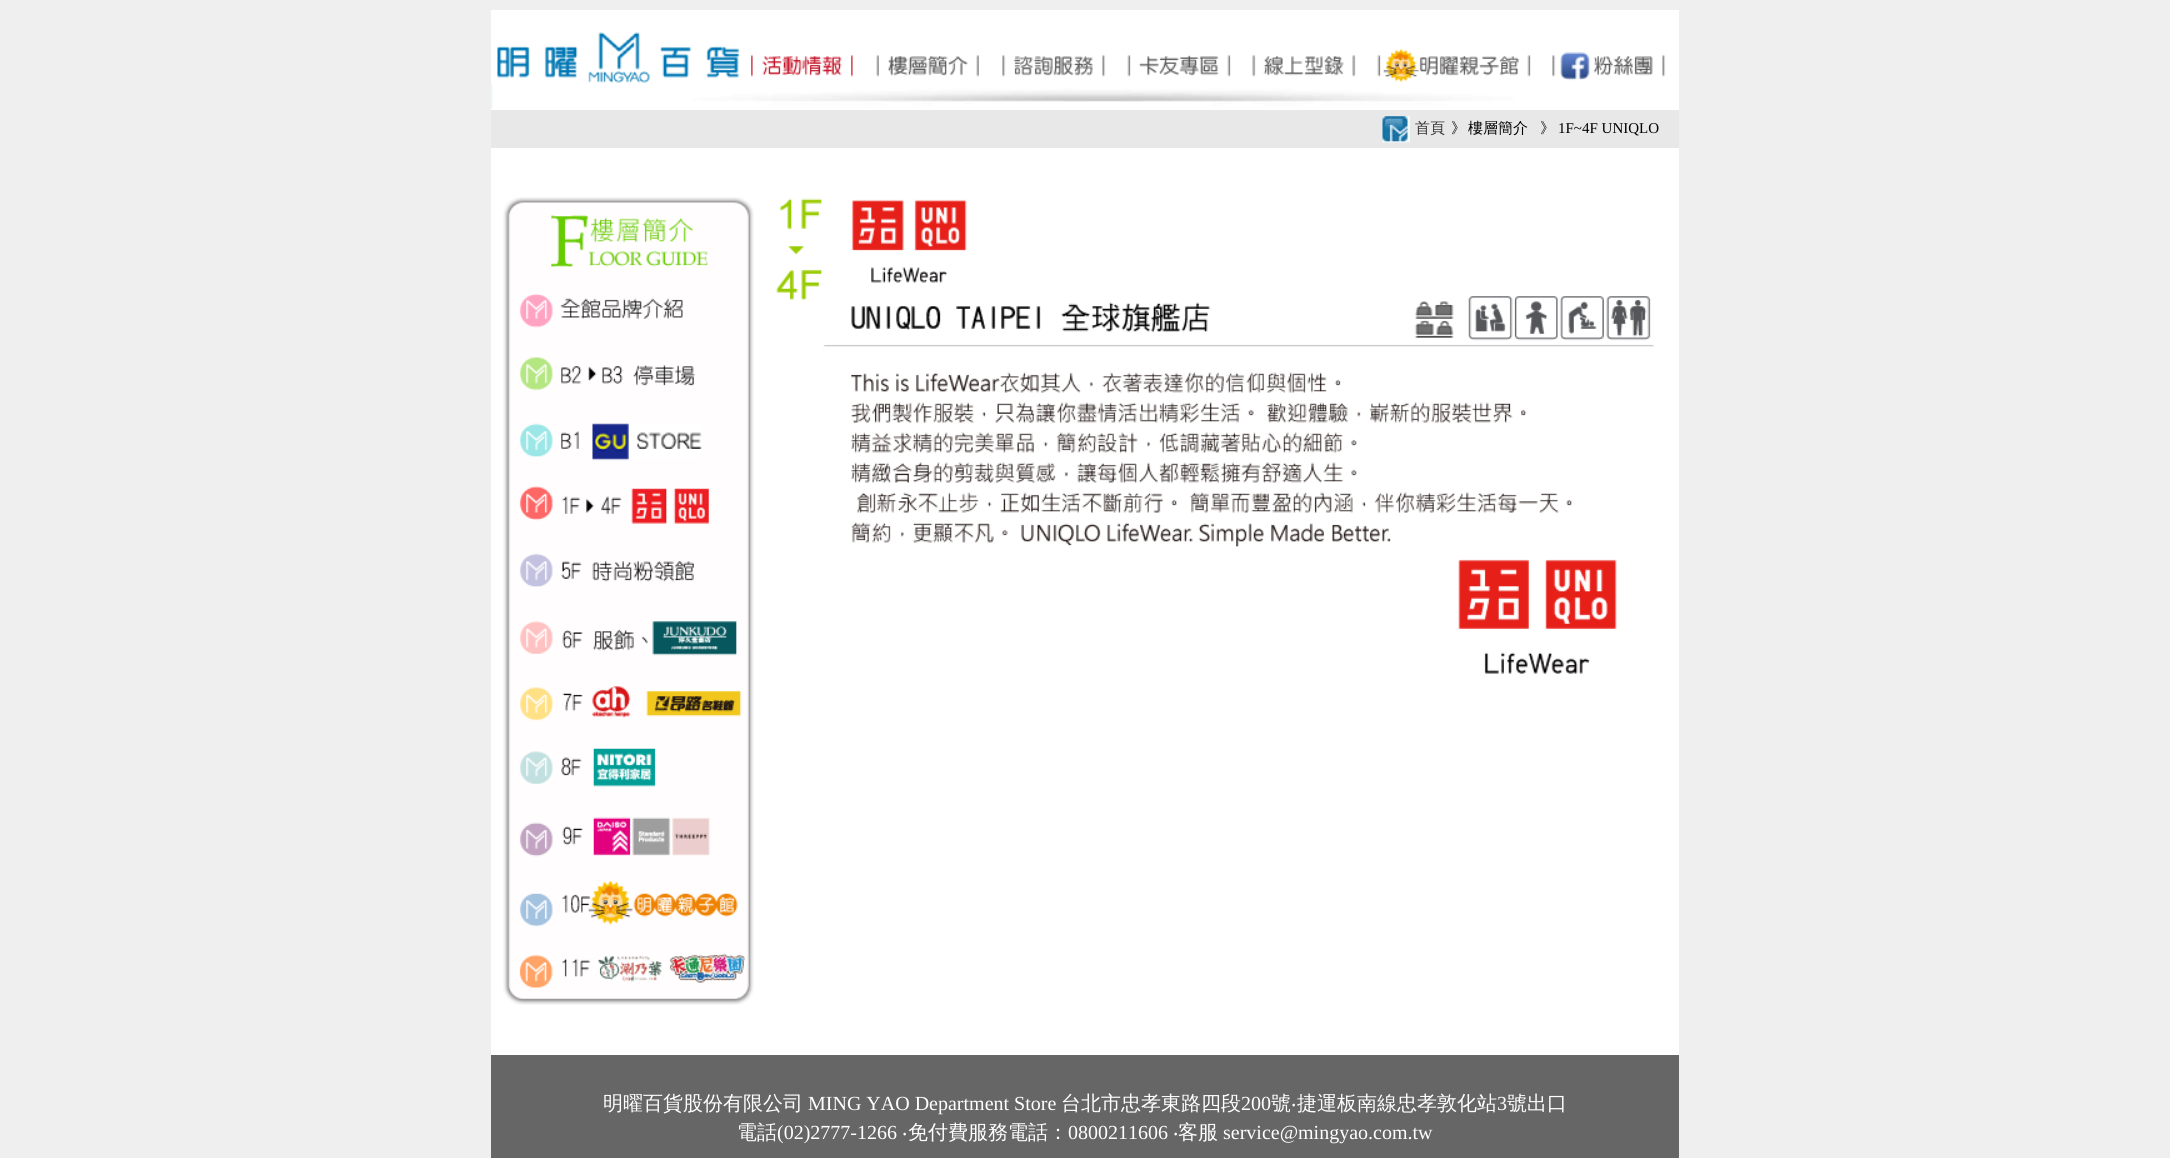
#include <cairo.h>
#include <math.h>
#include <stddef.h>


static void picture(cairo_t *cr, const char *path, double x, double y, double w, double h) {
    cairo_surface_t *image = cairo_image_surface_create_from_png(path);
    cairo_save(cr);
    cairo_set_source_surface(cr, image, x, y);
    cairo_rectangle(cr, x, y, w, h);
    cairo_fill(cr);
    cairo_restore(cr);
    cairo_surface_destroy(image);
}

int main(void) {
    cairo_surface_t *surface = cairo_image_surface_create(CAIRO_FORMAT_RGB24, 2170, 1158);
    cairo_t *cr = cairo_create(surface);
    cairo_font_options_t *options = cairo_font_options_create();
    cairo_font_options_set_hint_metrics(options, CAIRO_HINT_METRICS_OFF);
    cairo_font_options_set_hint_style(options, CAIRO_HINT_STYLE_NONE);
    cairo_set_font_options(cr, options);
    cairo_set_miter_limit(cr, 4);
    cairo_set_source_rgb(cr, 0.937, 0.937, 0.937);
    cairo_paint(cr);
    cairo_set_source_rgb(cr, 1, 1, 1);
    cairo_rectangle(cr, 491, 10, 1188, 100);
    cairo_fill(cr);
    picture(cr, "img1.png", 491, 32, 1175, 78);
    cairo_set_source_rgb(cr, 0.91, 0.91, 0.91);
    cairo_rectangle(cr, 491, 110, 1188, 38);
    cairo_fill(cr);
    picture(cr, "img2.png", 1382, 116, 28, 27);
    cairo_select_font_face(cr, "WenQuanYi Zen Hei Medium", CAIRO_FONT_SLANT_NORMAL, CAIRO_FONT_WEIGHT_NORMAL);
    cairo_set_font_size(cr, 15);
    cairo_set_source_rgb(cr, 0.2, 0.2, 0.2);
    cairo_move_to(cr, 1415, 133);
    cairo_show_text(cr, "首頁");
    cairo_set_source_rgb(cr, 0, 0, 0);
    cairo_move_to(cr, 1451, 133);
    cairo_show_text(cr, "》");
    cairo_move_to(cr, 1468, 133);
    cairo_show_text(cr, "樓層簡介");
    cairo_move_to(cr, 1540, 133);
    cairo_show_text(cr, "》");
    cairo_select_font_face(cr, "Liberation Serif", CAIRO_FONT_SLANT_NORMAL, CAIRO_FONT_WEIGHT_NORMAL);
    cairo_move_to(cr, 1558, 133);
    cairo_show_text(cr, "1F~4F UNIQLO");
    cairo_set_source_rgb(cr, 1, 1, 1);
    cairo_rectangle(cr, 491, 148, 1188, 907);
    cairo_fill(cr);
    picture(cr, "img3.png", 503, 197, 251, 808);
    picture(cr, "img4.png", 776, 198, 878, 476);
    cairo_set_source_rgb(cr, 0.4, 0.4, 0.4);
    cairo_rectangle(cr, 491, 1055, 1188, 103);
    cairo_fill(cr);
    cairo_select_font_face(cr, "WenQuanYi Zen Hei Medium", CAIRO_FONT_SLANT_NORMAL, CAIRO_FONT_WEIGHT_NORMAL);
    cairo_set_font_size(cr, 20);
    cairo_set_source_rgb(cr, 1, 1, 1);
    cairo_move_to(cr, 603, 1110);
    cairo_show_text(cr, "明曜百貨股份有限公司");
    cairo_select_font_face(cr, "Liberation Serif", CAIRO_FONT_SLANT_NORMAL, CAIRO_FONT_WEIGHT_NORMAL);
    cairo_move_to(cr, 808, 1110);
    cairo_show_text(cr, "MING YAO Department Store");
    cairo_select_font_face(cr, "WenQuanYi Zen Hei Medium", CAIRO_FONT_SLANT_NORMAL, CAIRO_FONT_WEIGHT_NORMAL);
    cairo_move_to(cr, 1061, 1110);
    cairo_show_text(cr, "台北市忠孝東路四段");
    cairo_select_font_face(cr, "Liberation Serif", CAIRO_FONT_SLANT_NORMAL, CAIRO_FONT_WEIGHT_NORMAL);
    cairo_move_to(cr, 1241, 1110);
    cairo_show_text(cr, "200");
    cairo_select_font_face(cr, "WenQuanYi Zen Hei Medium", CAIRO_FONT_SLANT_NORMAL, CAIRO_FONT_WEIGHT_NORMAL);
    cairo_move_to(cr, 1271, 1110);
    cairo_show_text(cr, "號");
    cairo_select_font_face(cr, "Noto Sans", CAIRO_FONT_SLANT_NORMAL, CAIRO_FONT_WEIGHT_NORMAL);
    cairo_move_to(cr, 1291, 1110);
    cairo_show_text(cr, "‧");
    cairo_select_font_face(cr, "WenQuanYi Zen Hei Medium", CAIRO_FONT_SLANT_NORMAL, CAIRO_FONT_WEIGHT_NORMAL);
    cairo_move_to(cr, 1297, 1110);
    cairo_show_text(cr, "捷運板南線忠孝敦化站");
    cairo_select_font_face(cr, "Liberation Serif", CAIRO_FONT_SLANT_NORMAL, CAIRO_FONT_WEIGHT_NORMAL);
    cairo_move_to(cr, 1497, 1110);
    cairo_show_text(cr, "3");
    cairo_select_font_face(cr, "WenQuanYi Zen Hei Medium", CAIRO_FONT_SLANT_NORMAL, CAIRO_FONT_WEIGHT_NORMAL);
    cairo_move_to(cr, 1507, 1110);
    cairo_show_text(cr, "號出口");
    cairo_move_to(cr, 737, 1139);
    cairo_show_text(cr, "電話");
    cairo_select_font_face(cr, "Liberation Serif", CAIRO_FONT_SLANT_NORMAL, CAIRO_FONT_WEIGHT_NORMAL);
    cairo_move_to(cr, 777, 1139);
    cairo_show_text(cr, "(02)2777-1266");
    cairo_select_font_face(cr, "Noto Sans", CAIRO_FONT_SLANT_NORMAL, CAIRO_FONT_WEIGHT_NORMAL);
    cairo_move_to(cr, 902, 1139);
    cairo_show_text(cr, "‧");
    cairo_select_font_face(cr, "WenQuanYi Zen Hei Medium", CAIRO_FONT_SLANT_NORMAL, CAIRO_FONT_WEIGHT_NORMAL);
    cairo_move_to(cr, 908, 1139);
    cairo_show_text(cr, "免付費服務電話：");
    cairo_select_font_face(cr, "Liberation Serif", CAIRO_FONT_SLANT_NORMAL, CAIRO_FONT_WEIGHT_NORMAL);
    cairo_move_to(cr, 1068, 1139);
    cairo_show_text(cr, "0800211606");
    cairo_select_font_face(cr, "Noto Sans", CAIRO_FONT_SLANT_NORMAL, CAIRO_FONT_WEIGHT_NORMAL);
    cairo_move_to(cr, 1173, 1139);
    cairo_show_text(cr, "‧");
    cairo_select_font_face(cr, "WenQuanYi Zen Hei Medium", CAIRO_FONT_SLANT_NORMAL, CAIRO_FONT_WEIGHT_NORMAL);
    cairo_move_to(cr, 1178, 1139);
    cairo_show_text(cr, "客服");
    cairo_select_font_face(cr, "Liberation Serif", CAIRO_FONT_SLANT_NORMAL, CAIRO_FONT_WEIGHT_NORMAL);
    cairo_move_to(cr, 1223, 1139);
    cairo_show_text(cr, "service@mingyao.com.tw");
    cairo_surface_write_to_png(surface, "page.png");
    cairo_font_options_destroy(options);
    cairo_destroy(cr);
    cairo_surface_destroy(surface);
    return 0;
}
